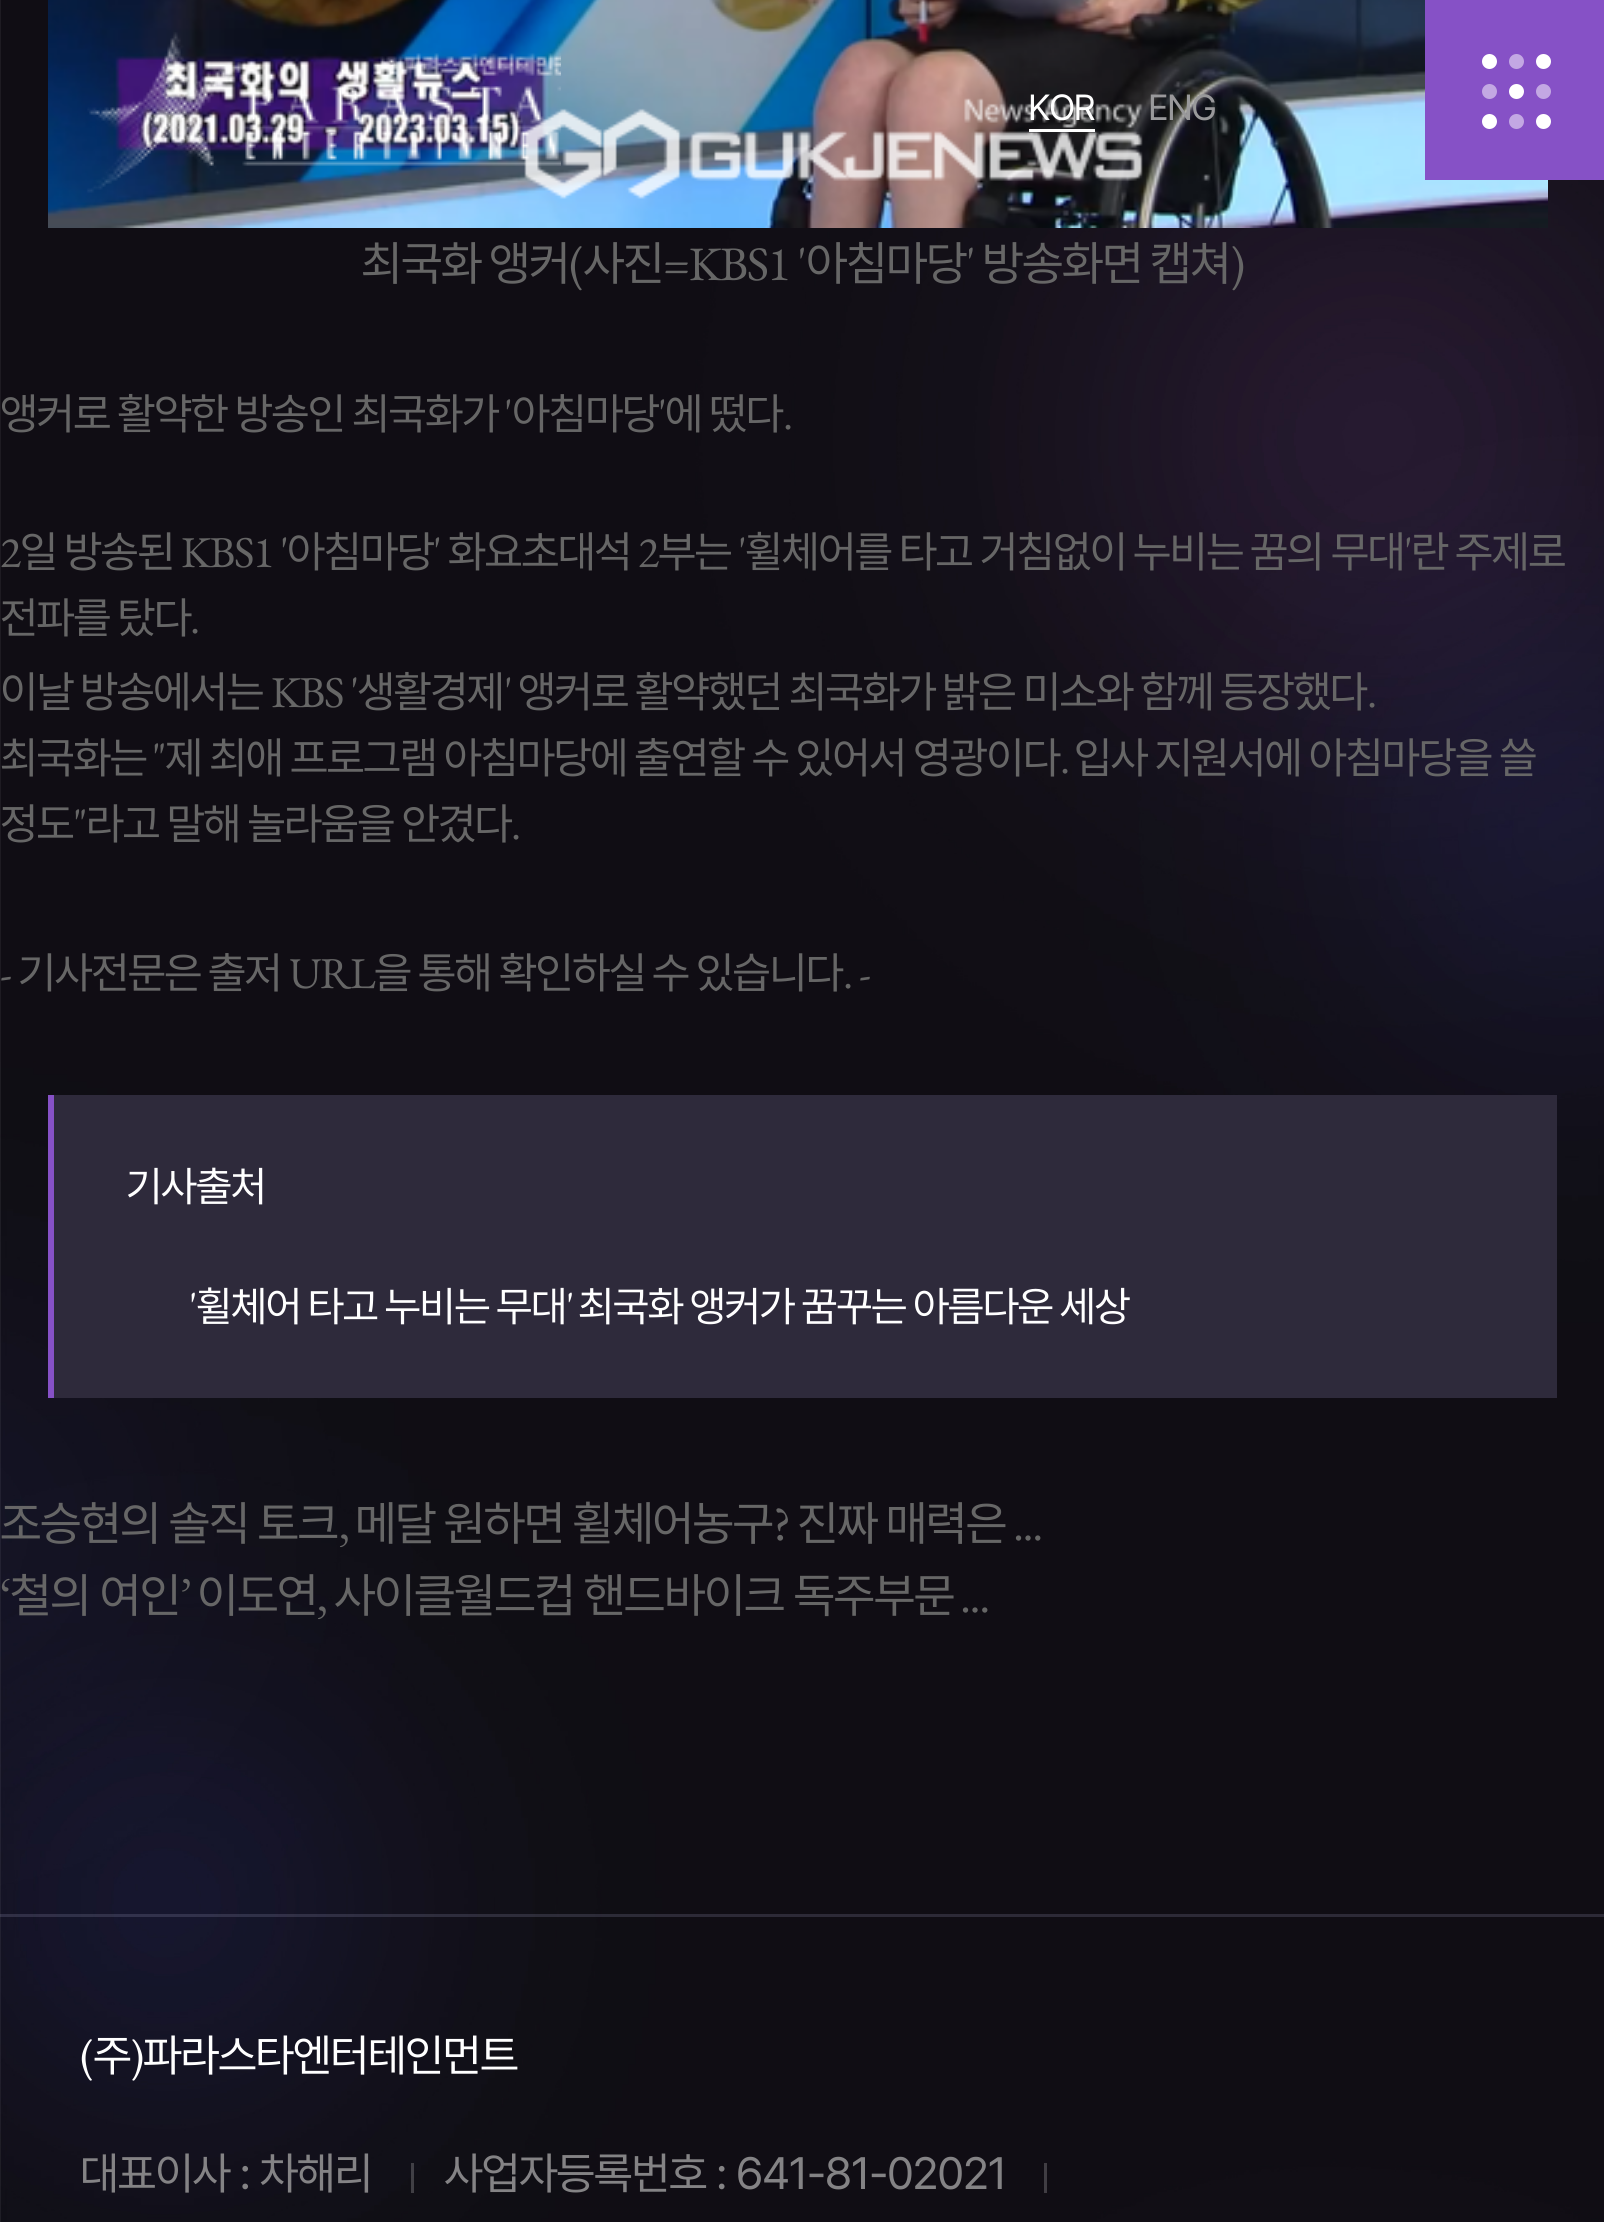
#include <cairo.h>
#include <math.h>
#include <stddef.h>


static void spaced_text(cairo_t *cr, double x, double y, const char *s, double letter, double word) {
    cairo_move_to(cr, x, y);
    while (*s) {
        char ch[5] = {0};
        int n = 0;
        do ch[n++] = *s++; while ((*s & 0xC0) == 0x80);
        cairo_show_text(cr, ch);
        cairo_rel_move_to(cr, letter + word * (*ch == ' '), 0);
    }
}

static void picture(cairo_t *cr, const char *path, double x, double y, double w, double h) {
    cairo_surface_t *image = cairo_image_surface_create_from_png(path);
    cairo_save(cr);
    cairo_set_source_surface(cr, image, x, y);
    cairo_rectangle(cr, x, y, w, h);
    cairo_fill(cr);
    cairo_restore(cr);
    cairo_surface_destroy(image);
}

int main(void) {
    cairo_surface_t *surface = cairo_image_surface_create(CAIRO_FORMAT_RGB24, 1604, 2222);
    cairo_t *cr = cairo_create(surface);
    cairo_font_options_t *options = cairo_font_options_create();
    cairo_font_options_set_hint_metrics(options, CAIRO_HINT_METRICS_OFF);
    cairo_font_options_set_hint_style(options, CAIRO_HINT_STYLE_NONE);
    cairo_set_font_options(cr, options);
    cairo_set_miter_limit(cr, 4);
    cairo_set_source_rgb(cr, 1, 1, 1);
    cairo_paint(cr);
    picture(cr, "img1.png", 0, 0, 1604, 2222);
    picture(cr, "img3.png", 48, 0, 1500, 228);
    picture(cr, "img2.png", 87, 32, 474, 161);
    cairo_select_font_face(cr, "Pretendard", CAIRO_FONT_SLANT_NORMAL, CAIRO_FONT_WEIGHT_NORMAL);
    cairo_set_font_size(cr, 36);
    cairo_set_source_rgb(cr, 1, 1, 1);
    spaced_text(cr, 1028, 120, "KOR", -1.45, 0);
    cairo_rectangle(cr, 1029, 129, 66, 3);
    cairo_fill(cr);
    cairo_set_source_rgb(cr, 0.6, 0.6, 0.608);
    spaced_text(cr, 1148, 120, "ENG", -1.45, 0);
    cairo_set_source_rgb(cr, 0.525, 0.318, 0.776);
    cairo_rectangle(cr, 1425, 0, 179, 180);
    cairo_fill(cr);
    cairo_set_source_rgb(cr, 1, 1, 1);
    cairo_arc(cr, 1489.5, 61.5, 7.5, 0, 2 * M_PI);
    cairo_fill(cr);
    cairo_set_source_rgb(cr, 0.765, 0.659, 0.89);
    cairo_arc(cr, 1516.5, 61.5, 7.5, 0, 2 * M_PI);
    cairo_fill(cr);
    cairo_set_source_rgb(cr, 1, 1, 1);
    cairo_arc(cr, 1543.5, 61.5, 7.5, 0, 2 * M_PI);
    cairo_fill(cr);
    cairo_set_source_rgb(cr, 0.765, 0.659, 0.89);
    cairo_arc(cr, 1489.5, 91.5, 7.5, 0, 2 * M_PI);
    cairo_fill(cr);
    cairo_set_source_rgb(cr, 1, 1, 1);
    cairo_arc(cr, 1516.5, 91.5, 7.5, 0, 2 * M_PI);
    cairo_fill(cr);
    cairo_set_source_rgb(cr, 0.765, 0.659, 0.89);
    cairo_arc(cr, 1543.5, 91.5, 7.5, 0, 2 * M_PI);
    cairo_fill(cr);
    cairo_set_source_rgb(cr, 1, 1, 1);
    cairo_arc(cr, 1489.5, 121.5, 7.5, 0, 2 * M_PI);
    cairo_fill(cr);
    cairo_set_source_rgb(cr, 0.765, 0.659, 0.89);
    cairo_arc(cr, 1516.5, 121.5, 7.5, 0, 2 * M_PI);
    cairo_fill(cr);
    cairo_set_source_rgb(cr, 1, 1, 1);
    cairo_arc(cr, 1543.5, 121.5, 7.5, 0, 2 * M_PI);
    cairo_fill(cr);
    cairo_set_font_size(cr, 48);
    cairo_set_source_rgb(cr, 0.4, 0.4, 0.4);
    spaced_text(cr, 361, 280, "최국화", -1.45, 0);
    spaced_text(cr, 489, 280, "앵커", -1.45, 0);
    cairo_select_font_face(cr, "EB Garamond", CAIRO_FONT_SLANT_NORMAL, CAIRO_FONT_WEIGHT_NORMAL);
    spaced_text(cr, 569, 280, "(", -1.45, 0);
    cairo_select_font_face(cr, "Pretendard", CAIRO_FONT_SLANT_NORMAL, CAIRO_FONT_WEIGHT_NORMAL);
    spaced_text(cr, 583, 280, "사진", -1.45, 0);
    cairo_select_font_face(cr, "EB Garamond", CAIRO_FONT_SLANT_NORMAL, CAIRO_FONT_WEIGHT_NORMAL);
    spaced_text(cr, 663, 280, "=KBS1 '", -1.45, 0);
    cairo_select_font_face(cr, "Pretendard", CAIRO_FONT_SLANT_NORMAL, CAIRO_FONT_WEIGHT_NORMAL);
    spaced_text(cr, 806, 280, "아침마당", -1.45, 0);
    cairo_select_font_face(cr, "EB Garamond", CAIRO_FONT_SLANT_NORMAL, CAIRO_FONT_WEIGHT_NORMAL);
    spaced_text(cr, 966, 280, "'", -1.45, 0);
    cairo_select_font_face(cr, "Pretendard", CAIRO_FONT_SLANT_NORMAL, CAIRO_FONT_WEIGHT_NORMAL);
    spaced_text(cr, 982, 280, "방송화면", -1.45, 0);
    spaced_text(cr, 1150, 280, "캡쳐", -1.45, 0);
    cairo_select_font_face(cr, "EB Garamond", CAIRO_FONT_SLANT_NORMAL, CAIRO_FONT_WEIGHT_NORMAL);
    spaced_text(cr, 1230, 280, ")", -1.45, 0);
    cairo_select_font_face(cr, "Pretendard", CAIRO_FONT_SLANT_NORMAL, CAIRO_FONT_WEIGHT_NORMAL);
    cairo_set_font_size(cr, 44);
    spaced_text(cr, 0, 429, "앵커로 활약한 방송인 최국화가", -1.45, -2);
    cairo_select_font_face(cr, "EB Garamond", CAIRO_FONT_SLANT_NORMAL, CAIRO_FONT_WEIGHT_NORMAL);
    spaced_text(cr, 504, 429, "'", -1.45, 0);
    cairo_select_font_face(cr, "Pretendard", CAIRO_FONT_SLANT_NORMAL, CAIRO_FONT_WEIGHT_NORMAL);
    spaced_text(cr, 512, 429, "아침마당", -1.45, 0);
    cairo_select_font_face(cr, "EB Garamond", CAIRO_FONT_SLANT_NORMAL, CAIRO_FONT_WEIGHT_NORMAL);
    spaced_text(cr, 658, 429, "'", -1.45, 0);
    cairo_select_font_face(cr, "Pretendard", CAIRO_FONT_SLANT_NORMAL, CAIRO_FONT_WEIGHT_NORMAL);
    spaced_text(cr, 665, 429, "에 떴다", -1.45, -2);
    cairo_select_font_face(cr, "EB Garamond", CAIRO_FONT_SLANT_NORMAL, CAIRO_FONT_WEIGHT_NORMAL);
    spaced_text(cr, 783, 429, ".", -1.45, 0);
    spaced_text(cr, 0, 567, "2", -1.45, 0);
    cairo_select_font_face(cr, "Pretendard", CAIRO_FONT_SLANT_NORMAL, CAIRO_FONT_WEIGHT_NORMAL);
    spaced_text(cr, 20, 567, "일", -1.45, 0);
    spaced_text(cr, 64, 567, "방송된", -1.45, 0);
    cairo_select_font_face(cr, "EB Garamond", CAIRO_FONT_SLANT_NORMAL, CAIRO_FONT_WEIGHT_NORMAL);
    spaced_text(cr, 181, 567, "KBS1 '", -1.45, 0);
    cairo_select_font_face(cr, "Pretendard", CAIRO_FONT_SLANT_NORMAL, CAIRO_FONT_WEIGHT_NORMAL);
    spaced_text(cr, 287, 567, "아침마당", -1.45, 0);
    cairo_select_font_face(cr, "EB Garamond", CAIRO_FONT_SLANT_NORMAL, CAIRO_FONT_WEIGHT_NORMAL);
    spaced_text(cr, 433, 567, "'", -1.45, 0);
    cairo_select_font_face(cr, "Pretendard", CAIRO_FONT_SLANT_NORMAL, CAIRO_FONT_WEIGHT_NORMAL);
    spaced_text(cr, 448, 567, "화요초대석", -1.45, 0);
    cairo_select_font_face(cr, "EB Garamond", CAIRO_FONT_SLANT_NORMAL, CAIRO_FONT_WEIGHT_NORMAL);
    spaced_text(cr, 638, 567, "2", -1.45, 0);
    cairo_select_font_face(cr, "Pretendard", CAIRO_FONT_SLANT_NORMAL, CAIRO_FONT_WEIGHT_NORMAL);
    spaced_text(cr, 658, 567, "부는", -1.45, 0);
    cairo_select_font_face(cr, "EB Garamond", CAIRO_FONT_SLANT_NORMAL, CAIRO_FONT_WEIGHT_NORMAL);
    spaced_text(cr, 738, 567, "'", -1.45, 0);
    cairo_select_font_face(cr, "Pretendard", CAIRO_FONT_SLANT_NORMAL, CAIRO_FONT_WEIGHT_NORMAL);
    spaced_text(cr, 745, 567, "휠체어를", -1.45, 0);
    spaced_text(cr, 899, 567, "타고", -1.45, 0);
    spaced_text(cr, 980, 567, "거침없이", -1.45, 0);
    spaced_text(cr, 1133, 567, "누비는", -1.45, 0);
    spaced_text(cr, 1250, 567, "꿈의", -1.45, 0);
    spaced_text(cr, 1331, 567, "무대", -1.45, 0);
    cairo_select_font_face(cr, "EB Garamond", CAIRO_FONT_SLANT_NORMAL, CAIRO_FONT_WEIGHT_NORMAL);
    spaced_text(cr, 1404, 567, "'", -1.45, 0);
    cairo_select_font_face(cr, "Pretendard", CAIRO_FONT_SLANT_NORMAL, CAIRO_FONT_WEIGHT_NORMAL);
    spaced_text(cr, 1411, 567, "란", -1.45, 0);
    spaced_text(cr, 1455, 567, "주제로", -1.45, 0);
    spaced_text(cr, 0, 633, "전파를 탔다", -1.45, -2);
    cairo_select_font_face(cr, "EB Garamond", CAIRO_FONT_SLANT_NORMAL, CAIRO_FONT_WEIGHT_NORMAL);
    spaced_text(cr, 190, 633, ".", -1.45, 0);
    cairo_select_font_face(cr, "Pretendard", CAIRO_FONT_SLANT_NORMAL, CAIRO_FONT_WEIGHT_NORMAL);
    spaced_text(cr, 0, 707, "이날", -1.45, 0);
    spaced_text(cr, 80, 707, "방송에서는", -1.45, 0);
    cairo_select_font_face(cr, "EB Garamond", CAIRO_FONT_SLANT_NORMAL, CAIRO_FONT_WEIGHT_NORMAL);
    spaced_text(cr, 271, 707, "KBS '", -1.45, 0);
    cairo_select_font_face(cr, "Pretendard", CAIRO_FONT_SLANT_NORMAL, CAIRO_FONT_WEIGHT_NORMAL);
    spaced_text(cr, 357, 707, "생활경제", -1.45, 0);
    cairo_select_font_face(cr, "EB Garamond", CAIRO_FONT_SLANT_NORMAL, CAIRO_FONT_WEIGHT_NORMAL);
    spaced_text(cr, 504, 707, "'", -1.45, 0);
    cairo_select_font_face(cr, "Pretendard", CAIRO_FONT_SLANT_NORMAL, CAIRO_FONT_WEIGHT_NORMAL);
    spaced_text(cr, 518, 707, "앵커로", -1.45, 0);
    spaced_text(cr, 635, 707, "활약했던", -1.45, 0);
    spaced_text(cr, 789, 707, "최국화가", -1.45, 0);
    spaced_text(cr, 942, 707, "밝은", -1.45, 0);
    spaced_text(cr, 1023, 707, "미소와", -1.45, 0);
    spaced_text(cr, 1140, 707, "함께", -1.45, 0);
    spaced_text(cr, 1220, 707, "등장했다", -1.45, 0);
    cairo_select_font_face(cr, "EB Garamond", CAIRO_FONT_SLANT_NORMAL, CAIRO_FONT_WEIGHT_NORMAL);
    spaced_text(cr, 1367, 707, ".", -1.45, 0);
    cairo_select_font_face(cr, "Pretendard", CAIRO_FONT_SLANT_NORMAL, CAIRO_FONT_WEIGHT_NORMAL);
    spaced_text(cr, 0, 773, "최국화는", -1.45, 0);
    cairo_select_font_face(cr, "EB Garamond", CAIRO_FONT_SLANT_NORMAL, CAIRO_FONT_WEIGHT_NORMAL);
    spaced_text(cr, 152, 773, "\"", -1.45, 0);
    cairo_select_font_face(cr, "Pretendard", CAIRO_FONT_SLANT_NORMAL, CAIRO_FONT_WEIGHT_NORMAL);
    spaced_text(cr, 165, 773, "제 최애 프로그램 아침마당에 출연할 수 있어서 영광이다", -1.45, -2);
    spaced_text(cr, 1074, 773, "입사 지원서에 아침마당을 쓸", -1.45, -2);
    cairo_select_font_face(cr, "EB Garamond", CAIRO_FONT_SLANT_NORMAL, CAIRO_FONT_WEIGHT_NORMAL);
    spaced_text(cr, 1060, 773, ".", -1.45, 0);
    cairo_select_font_face(cr, "Pretendard", CAIRO_FONT_SLANT_NORMAL, CAIRO_FONT_WEIGHT_NORMAL);
    spaced_text(cr, 0, 839, "정도", -1.45, 0);
    cairo_select_font_face(cr, "EB Garamond", CAIRO_FONT_SLANT_NORMAL, CAIRO_FONT_WEIGHT_NORMAL);
    spaced_text(cr, 73, 839, "\"", -1.45, 0);
    cairo_select_font_face(cr, "Pretendard", CAIRO_FONT_SLANT_NORMAL, CAIRO_FONT_WEIGHT_NORMAL);
    spaced_text(cr, 86, 839, "라고 말해 놀라움을 안겼다", -1.45, -2);
    cairo_select_font_face(cr, "EB Garamond", CAIRO_FONT_SLANT_NORMAL, CAIRO_FONT_WEIGHT_NORMAL);
    spaced_text(cr, 511, 839, ".", -1.45, 0);
    spaced_text(cr, 0, 988, "-", -1.45, 0);
    cairo_select_font_face(cr, "Pretendard", CAIRO_FONT_SLANT_NORMAL, CAIRO_FONT_WEIGHT_NORMAL);
    spaced_text(cr, 18, 988, "기사전문은", -1.45, 0);
    spaced_text(cr, 208, 988, "출저", -1.45, 0);
    cairo_select_font_face(cr, "EB Garamond", CAIRO_FONT_SLANT_NORMAL, CAIRO_FONT_WEIGHT_NORMAL);
    spaced_text(cr, 289, 988, "URL", -1.45, 0);
    cairo_select_font_face(cr, "Pretendard", CAIRO_FONT_SLANT_NORMAL, CAIRO_FONT_WEIGHT_NORMAL);
    spaced_text(cr, 374, 988, "을", -1.45, 0);
    spaced_text(cr, 418, 988, "통해", -1.45, 0);
    spaced_text(cr, 499, 988, "확인하실", -1.45, 0);
    spaced_text(cr, 652, 988, "수", -1.45, 0);
    spaced_text(cr, 696, 988, "있습니다", -1.45, 0);
    cairo_select_font_face(cr, "EB Garamond", CAIRO_FONT_SLANT_NORMAL, CAIRO_FONT_WEIGHT_NORMAL);
    spaced_text(cr, 843, 988, ". -", -1.45, 0);
    cairo_set_source_rgb(cr, 0.18, 0.165, 0.231);
    cairo_rectangle(cr, 54, 1095, 1503, 303);
    cairo_fill(cr);
    cairo_set_source_rgb(cr, 0.525, 0.318, 0.776);
    cairo_rectangle(cr, 48, 1095, 6, 303);
    cairo_fill(cr);
    cairo_select_font_face(cr, "Pretendard", CAIRO_FONT_SLANT_NORMAL, CAIRO_FONT_WEIGHT_NORMAL);
    cairo_set_font_size(cr, 42);
    cairo_set_source_rgb(cr, 1, 1, 1);
    spaced_text(cr, 126, 1201, "기사출처", -1.45, 0);
    cairo_select_font_face(cr, "EB Garamond", CAIRO_FONT_SLANT_NORMAL, CAIRO_FONT_WEIGHT_NORMAL);
    spaced_text(cr, 189, 1321, "'", -1.45, 0);
    cairo_select_font_face(cr, "Pretendard", CAIRO_FONT_SLANT_NORMAL, CAIRO_FONT_WEIGHT_NORMAL);
    spaced_text(cr, 196, 1321, "휠체어 타고 누비는 무대", -1.45, -2);
    cairo_select_font_face(cr, "EB Garamond", CAIRO_FONT_SLANT_NORMAL, CAIRO_FONT_WEIGHT_NORMAL);
    spaced_text(cr, 566, 1321, "'", -1.45, 0);
    cairo_select_font_face(cr, "Pretendard", CAIRO_FONT_SLANT_NORMAL, CAIRO_FONT_WEIGHT_NORMAL);
    spaced_text(cr, 578, 1321, "최국화 앵커가 꿈꾸는 아름다운 세상", -1.45, -2);
    cairo_set_font_size(cr, 48);
    cairo_set_source_rgb(cr, 0.4, 0.4, 0.4);
    spaced_text(cr, 0, 1540, "조승현의 솔직 토크", -1.45, -2);
    cairo_select_font_face(cr, "EB Garamond", CAIRO_FONT_SLANT_NORMAL, CAIRO_FONT_WEIGHT_NORMAL);
    spaced_text(cr, 339, 1540, ",", -1.45, 0);
    cairo_select_font_face(cr, "Pretendard", CAIRO_FONT_SLANT_NORMAL, CAIRO_FONT_WEIGHT_NORMAL);
    spaced_text(cr, 355, 1540, "메달 원하면 휠체어농구", -1.45, -2);
    cairo_select_font_face(cr, "EB Garamond", CAIRO_FONT_SLANT_NORMAL, CAIRO_FONT_WEIGHT_NORMAL);
    spaced_text(cr, 773, 1540, "?", -1.45, 0);
    cairo_select_font_face(cr, "Pretendard", CAIRO_FONT_SLANT_NORMAL, CAIRO_FONT_WEIGHT_NORMAL);
    spaced_text(cr, 797, 1540, "진짜 매력은", -1.45, -2);
    cairo_select_font_face(cr, "EB Garamond", CAIRO_FONT_SLANT_NORMAL, CAIRO_FONT_WEIGHT_NORMAL);
    spaced_text(cr, 1013, 1540, "...", -1.45, 0);
    spaced_text(cr, 0, 1612, "‘", -1.45, 0);
    cairo_select_font_face(cr, "Pretendard", CAIRO_FONT_SLANT_NORMAL, CAIRO_FONT_WEIGHT_NORMAL);
    spaced_text(cr, 10, 1612, "철의 여인", -1.45, -1);
    cairo_select_font_face(cr, "EB Garamond", CAIRO_FONT_SLANT_NORMAL, CAIRO_FONT_WEIGHT_NORMAL);
    spaced_text(cr, 180, 1612, "’", -1.45, 0);
    cairo_select_font_face(cr, "Pretendard", CAIRO_FONT_SLANT_NORMAL, CAIRO_FONT_WEIGHT_NORMAL);
    spaced_text(cr, 197, 1612, "이도연", -1.45, 0);
    spaced_text(cr, 334, 1612, "사이클월드컵 핸드바이크 독주부문", -1.45, -1);
    cairo_select_font_face(cr, "EB Garamond", CAIRO_FONT_SLANT_NORMAL, CAIRO_FONT_WEIGHT_NORMAL);
    spaced_text(cr, 317, 1612, ",", -1.45, 0);
    spaced_text(cr, 960, 1612, "...", -1.45, 0);
    cairo_set_source_rgba(cr, 0.635, 0.639, 0.773, 0.2);
    cairo_rectangle(cr, 0, 1914, 1604, 3);
    cairo_fill(cr);
    cairo_set_font_size(cr, 45);
    cairo_set_source_rgb(cr, 1, 1, 1);
    spaced_text(cr, 80, 2071, "(", -1.45, 0);
    cairo_select_font_face(cr, "Pretendard", CAIRO_FONT_SLANT_NORMAL, CAIRO_FONT_WEIGHT_NORMAL);
    spaced_text(cr, 93, 2071, "주", -1.45, 0);
    cairo_select_font_face(cr, "EB Garamond", CAIRO_FONT_SLANT_NORMAL, CAIRO_FONT_WEIGHT_NORMAL);
    spaced_text(cr, 130, 2071, ")", -1.45, 0);
    cairo_select_font_face(cr, "Pretendard", CAIRO_FONT_SLANT_NORMAL, CAIRO_FONT_WEIGHT_NORMAL);
    spaced_text(cr, 143, 2071, "파라스타엔터테인먼트", -1.45, 0);
    cairo_set_source_rgb(cr, 0.518, 0.514, 0.522);
    spaced_text(cr, 80, 2189, "대표이사 : 차해리", -1.45, 0);
    cairo_set_source_rgba(cr, 1, 1, 1, 0.2);
    cairo_rectangle(cr, 411, 2163, 3, 30);
    cairo_fill(cr);
    cairo_set_source_rgb(cr, 0.518, 0.514, 0.522);
    spaced_text(cr, 444, 2189, "사업자등록번호 : 641-81-02021", -1.45, 0);
    cairo_set_source_rgb(cr, 0.251, 0.239, 0.263);
    cairo_rectangle(cr, 1044, 2163, 3, 30);
    cairo_fill(cr);
    cairo_surface_write_to_png(surface, "page.png");
    cairo_font_options_destroy(options);
    cairo_destroy(cr);
    cairo_surface_destroy(surface);
    return 0;
}
